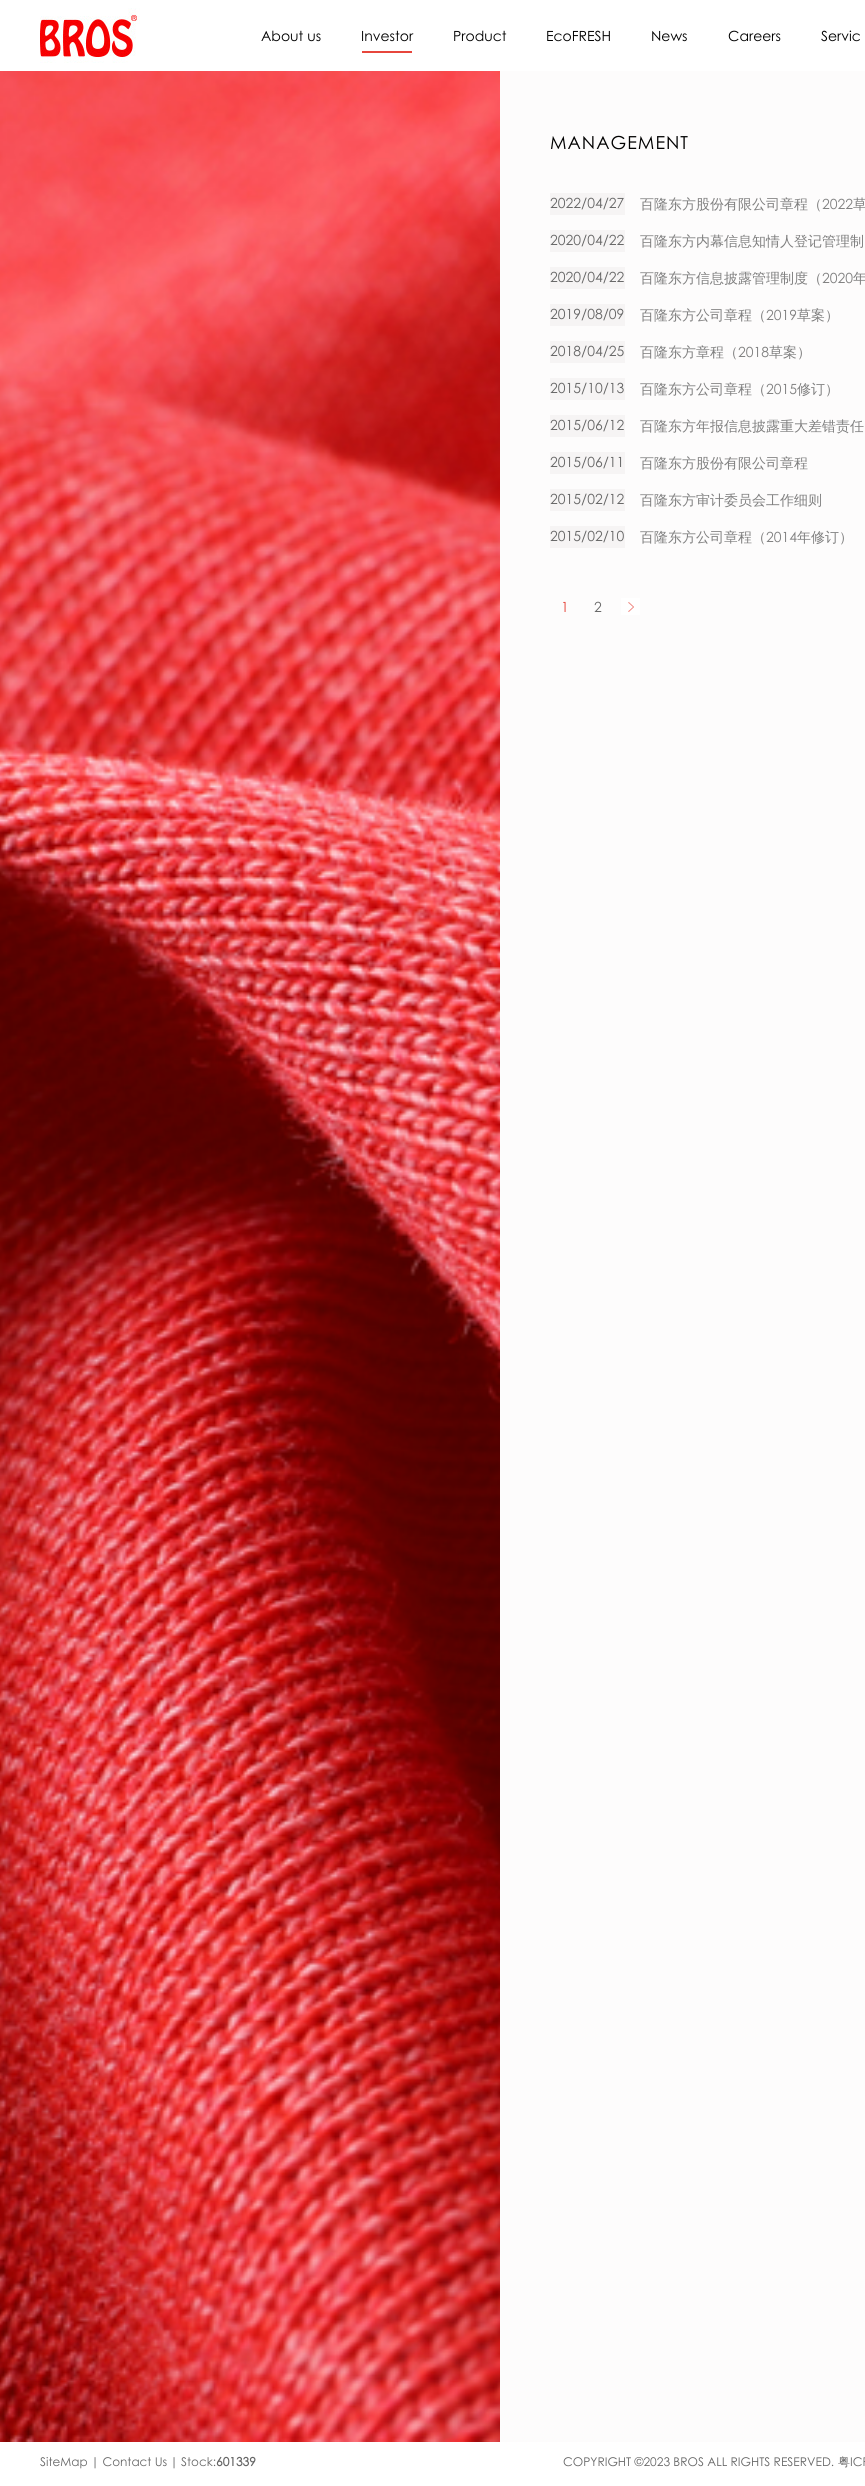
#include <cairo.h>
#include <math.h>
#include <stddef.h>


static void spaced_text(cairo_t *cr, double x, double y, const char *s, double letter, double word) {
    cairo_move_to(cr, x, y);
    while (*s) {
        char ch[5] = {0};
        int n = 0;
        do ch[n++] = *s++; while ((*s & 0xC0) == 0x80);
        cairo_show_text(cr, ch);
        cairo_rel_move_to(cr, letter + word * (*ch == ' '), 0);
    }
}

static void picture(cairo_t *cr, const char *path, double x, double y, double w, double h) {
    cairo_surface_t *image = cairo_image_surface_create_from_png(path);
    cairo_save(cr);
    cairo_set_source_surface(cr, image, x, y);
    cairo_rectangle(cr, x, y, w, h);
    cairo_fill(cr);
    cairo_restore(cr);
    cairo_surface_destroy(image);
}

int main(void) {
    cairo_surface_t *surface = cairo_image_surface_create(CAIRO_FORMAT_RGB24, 865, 2486);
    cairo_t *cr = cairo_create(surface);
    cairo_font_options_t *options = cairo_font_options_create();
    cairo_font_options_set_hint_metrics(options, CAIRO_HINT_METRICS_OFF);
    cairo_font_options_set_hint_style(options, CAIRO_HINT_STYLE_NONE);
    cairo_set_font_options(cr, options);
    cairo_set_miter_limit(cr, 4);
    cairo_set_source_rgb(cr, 1, 1, 1);
    cairo_paint(cr);
    picture(cr, "img1.png", 40, 8, 100, 55);
    cairo_select_font_face(cr, "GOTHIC", CAIRO_FONT_SLANT_NORMAL, CAIRO_FONT_WEIGHT_NORMAL);
    cairo_set_font_size(cr, 14);
    cairo_set_source_rgb(cr, 0, 0, 0);
    cairo_move_to(cr, 261, 41);
    cairo_show_text(cr, "About us");
    cairo_move_to(cr, 361, 41);
    cairo_show_text(cr, "Investor");
    cairo_set_source_rgb(cr, 0.906, 0.275, 0.235);
    cairo_rectangle(cr, 362, 51, 50, 2);
    cairo_fill(cr);
    cairo_set_source_rgb(cr, 0, 0, 0);
    cairo_move_to(cr, 453, 41);
    cairo_show_text(cr, "Product");
    cairo_move_to(cr, 546, 41);
    cairo_show_text(cr, "EcoFRESH");
    cairo_move_to(cr, 651, 41);
    cairo_show_text(cr, "News");
    cairo_move_to(cr, 728, 41);
    cairo_show_text(cr, "Careers");
    cairo_move_to(cr, 821, 41);
    cairo_show_text(cr, "Servic");
    picture(cr, "img2.png", 0, 71, 500, 2371);
    cairo_set_source_rgb(cr, 0.992, 0.988, 0.988);
    cairo_rectangle(cr, 500, 71, 365, 2371);
    cairo_fill(cr);
    cairo_set_font_size(cr, 18);
    cairo_set_source_rgb(cr, 0, 0, 0);
    spaced_text(cr, 550, 149, "MANAGEMENT", 1, 0);
    cairo_set_source_rgb(cr, 0.961, 0.957, 0.957);
    cairo_rectangle(cr, 550, 193, 75, 22);
    cairo_fill(cr);
    cairo_set_font_size(cr, 14);
    cairo_set_source_rgb(cr, 0.4, 0.4, 0.4);
    cairo_move_to(cr, 550, 208);
    cairo_show_text(cr, "2022/04/27");
    cairo_select_font_face(cr, "WenQuanYi Zen Hei Medium", CAIRO_FONT_SLANT_NORMAL, CAIRO_FONT_WEIGHT_NORMAL);
    cairo_set_source_rgb(cr, 0.498, 0.498, 0.498);
    cairo_move_to(cr, 640, 209);
    cairo_show_text(cr, "百隆东方股份有限公司章程（");
    cairo_select_font_face(cr, "GOTHIC", CAIRO_FONT_SLANT_NORMAL, CAIRO_FONT_WEIGHT_NORMAL);
    cairo_move_to(cr, 822, 209);
    cairo_show_text(cr, "2022");
    cairo_select_font_face(cr, "WenQuanYi Zen Hei Medium", CAIRO_FONT_SLANT_NORMAL, CAIRO_FONT_WEIGHT_NORMAL);
    cairo_move_to(cr, 853, 209);
    cairo_show_text(cr, "草");
    cairo_set_source_rgb(cr, 0.961, 0.957, 0.957);
    cairo_rectangle(cr, 550, 230, 75, 22);
    cairo_fill(cr);
    cairo_select_font_face(cr, "GOTHIC", CAIRO_FONT_SLANT_NORMAL, CAIRO_FONT_WEIGHT_NORMAL);
    cairo_set_source_rgb(cr, 0.4, 0.4, 0.4);
    cairo_move_to(cr, 550, 245);
    cairo_show_text(cr, "2020/04/22");
    cairo_select_font_face(cr, "WenQuanYi Zen Hei Medium", CAIRO_FONT_SLANT_NORMAL, CAIRO_FONT_WEIGHT_NORMAL);
    cairo_set_source_rgb(cr, 0.498, 0.498, 0.498);
    cairo_move_to(cr, 640, 246);
    cairo_show_text(cr, "百隆东方内幕信息知情人登记管理制");
    cairo_set_source_rgb(cr, 0.961, 0.957, 0.957);
    cairo_rectangle(cr, 550, 267, 75, 22);
    cairo_fill(cr);
    cairo_select_font_face(cr, "GOTHIC", CAIRO_FONT_SLANT_NORMAL, CAIRO_FONT_WEIGHT_NORMAL);
    cairo_set_source_rgb(cr, 0.4, 0.4, 0.4);
    cairo_move_to(cr, 550, 282);
    cairo_show_text(cr, "2020/04/22");
    cairo_select_font_face(cr, "WenQuanYi Zen Hei Medium", CAIRO_FONT_SLANT_NORMAL, CAIRO_FONT_WEIGHT_NORMAL);
    cairo_set_source_rgb(cr, 0.498, 0.498, 0.498);
    cairo_move_to(cr, 640, 283);
    cairo_show_text(cr, "百隆东方信息披露管理制度（");
    cairo_select_font_face(cr, "GOTHIC", CAIRO_FONT_SLANT_NORMAL, CAIRO_FONT_WEIGHT_NORMAL);
    cairo_move_to(cr, 822, 283);
    cairo_show_text(cr, "2020");
    cairo_select_font_face(cr, "WenQuanYi Zen Hei Medium", CAIRO_FONT_SLANT_NORMAL, CAIRO_FONT_WEIGHT_NORMAL);
    cairo_move_to(cr, 853, 283);
    cairo_show_text(cr, "年");
    cairo_set_source_rgb(cr, 0.961, 0.957, 0.957);
    cairo_rectangle(cr, 550, 304, 75, 22);
    cairo_fill(cr);
    cairo_select_font_face(cr, "GOTHIC", CAIRO_FONT_SLANT_NORMAL, CAIRO_FONT_WEIGHT_NORMAL);
    cairo_set_source_rgb(cr, 0.4, 0.4, 0.4);
    cairo_move_to(cr, 550, 319);
    cairo_show_text(cr, "2019/08/09");
    cairo_select_font_face(cr, "WenQuanYi Zen Hei Medium", CAIRO_FONT_SLANT_NORMAL, CAIRO_FONT_WEIGHT_NORMAL);
    cairo_set_source_rgb(cr, 0.498, 0.498, 0.498);
    cairo_move_to(cr, 640, 320);
    cairo_show_text(cr, "百隆东方公司章程（");
    cairo_select_font_face(cr, "GOTHIC", CAIRO_FONT_SLANT_NORMAL, CAIRO_FONT_WEIGHT_NORMAL);
    cairo_move_to(cr, 766, 320);
    cairo_show_text(cr, "2019");
    cairo_select_font_face(cr, "WenQuanYi Zen Hei Medium", CAIRO_FONT_SLANT_NORMAL, CAIRO_FONT_WEIGHT_NORMAL);
    cairo_move_to(cr, 797, 320);
    cairo_show_text(cr, "草案）");
    cairo_set_source_rgb(cr, 0.961, 0.957, 0.957);
    cairo_rectangle(cr, 550, 341, 75, 22);
    cairo_fill(cr);
    cairo_select_font_face(cr, "GOTHIC", CAIRO_FONT_SLANT_NORMAL, CAIRO_FONT_WEIGHT_NORMAL);
    cairo_set_source_rgb(cr, 0.4, 0.4, 0.4);
    cairo_move_to(cr, 550, 356);
    cairo_show_text(cr, "2018/04/25");
    cairo_select_font_face(cr, "WenQuanYi Zen Hei Medium", CAIRO_FONT_SLANT_NORMAL, CAIRO_FONT_WEIGHT_NORMAL);
    cairo_set_source_rgb(cr, 0.498, 0.498, 0.498);
    cairo_move_to(cr, 640, 357);
    cairo_show_text(cr, "百隆东方章程（");
    cairo_select_font_face(cr, "GOTHIC", CAIRO_FONT_SLANT_NORMAL, CAIRO_FONT_WEIGHT_NORMAL);
    cairo_move_to(cr, 738, 357);
    cairo_show_text(cr, "2018");
    cairo_select_font_face(cr, "WenQuanYi Zen Hei Medium", CAIRO_FONT_SLANT_NORMAL, CAIRO_FONT_WEIGHT_NORMAL);
    cairo_move_to(cr, 769, 357);
    cairo_show_text(cr, "草案）");
    cairo_set_source_rgb(cr, 0.961, 0.957, 0.957);
    cairo_rectangle(cr, 550, 378, 75, 22);
    cairo_fill(cr);
    cairo_select_font_face(cr, "GOTHIC", CAIRO_FONT_SLANT_NORMAL, CAIRO_FONT_WEIGHT_NORMAL);
    cairo_set_source_rgb(cr, 0.4, 0.4, 0.4);
    cairo_move_to(cr, 550, 393);
    cairo_show_text(cr, "2015/10/13");
    cairo_select_font_face(cr, "WenQuanYi Zen Hei Medium", CAIRO_FONT_SLANT_NORMAL, CAIRO_FONT_WEIGHT_NORMAL);
    cairo_set_source_rgb(cr, 0.498, 0.498, 0.498);
    cairo_move_to(cr, 640, 394);
    cairo_show_text(cr, "百隆东方公司章程（");
    cairo_select_font_face(cr, "GOTHIC", CAIRO_FONT_SLANT_NORMAL, CAIRO_FONT_WEIGHT_NORMAL);
    cairo_move_to(cr, 766, 394);
    cairo_show_text(cr, "2015");
    cairo_select_font_face(cr, "WenQuanYi Zen Hei Medium", CAIRO_FONT_SLANT_NORMAL, CAIRO_FONT_WEIGHT_NORMAL);
    cairo_move_to(cr, 797, 394);
    cairo_show_text(cr, "修订）");
    cairo_set_source_rgb(cr, 0.961, 0.957, 0.957);
    cairo_rectangle(cr, 550, 415, 75, 22);
    cairo_fill(cr);
    cairo_select_font_face(cr, "GOTHIC", CAIRO_FONT_SLANT_NORMAL, CAIRO_FONT_WEIGHT_NORMAL);
    cairo_set_source_rgb(cr, 0.4, 0.4, 0.4);
    cairo_move_to(cr, 550, 430);
    cairo_show_text(cr, "2015/06/12");
    cairo_select_font_face(cr, "WenQuanYi Zen Hei Medium", CAIRO_FONT_SLANT_NORMAL, CAIRO_FONT_WEIGHT_NORMAL);
    cairo_set_source_rgb(cr, 0.498, 0.498, 0.498);
    cairo_move_to(cr, 640, 431);
    cairo_show_text(cr, "百隆东方年报信息披露重大差错责任");
    cairo_set_source_rgb(cr, 0.961, 0.957, 0.957);
    cairo_rectangle(cr, 550, 452, 75, 22);
    cairo_fill(cr);
    cairo_select_font_face(cr, "GOTHIC", CAIRO_FONT_SLANT_NORMAL, CAIRO_FONT_WEIGHT_NORMAL);
    cairo_set_source_rgb(cr, 0.4, 0.4, 0.4);
    cairo_move_to(cr, 550, 467);
    cairo_show_text(cr, "2015/06/11");
    cairo_select_font_face(cr, "WenQuanYi Zen Hei Medium", CAIRO_FONT_SLANT_NORMAL, CAIRO_FONT_WEIGHT_NORMAL);
    cairo_set_source_rgb(cr, 0.498, 0.498, 0.498);
    cairo_move_to(cr, 640, 468);
    cairo_show_text(cr, "百隆东方股份有限公司章程");
    cairo_set_source_rgb(cr, 0.961, 0.957, 0.957);
    cairo_rectangle(cr, 550, 489, 75, 22);
    cairo_fill(cr);
    cairo_select_font_face(cr, "GOTHIC", CAIRO_FONT_SLANT_NORMAL, CAIRO_FONT_WEIGHT_NORMAL);
    cairo_set_source_rgb(cr, 0.4, 0.4, 0.4);
    cairo_move_to(cr, 550, 504);
    cairo_show_text(cr, "2015/02/12");
    cairo_select_font_face(cr, "WenQuanYi Zen Hei Medium", CAIRO_FONT_SLANT_NORMAL, CAIRO_FONT_WEIGHT_NORMAL);
    cairo_set_source_rgb(cr, 0.498, 0.498, 0.498);
    cairo_move_to(cr, 640, 505);
    cairo_show_text(cr, "百隆东方审计委员会工作细则");
    cairo_set_source_rgb(cr, 0.961, 0.957, 0.957);
    cairo_rectangle(cr, 550, 526, 75, 22);
    cairo_fill(cr);
    cairo_select_font_face(cr, "GOTHIC", CAIRO_FONT_SLANT_NORMAL, CAIRO_FONT_WEIGHT_NORMAL);
    cairo_set_source_rgb(cr, 0.4, 0.4, 0.4);
    cairo_move_to(cr, 550, 541);
    cairo_show_text(cr, "2015/02/10");
    cairo_select_font_face(cr, "WenQuanYi Zen Hei Medium", CAIRO_FONT_SLANT_NORMAL, CAIRO_FONT_WEIGHT_NORMAL);
    cairo_set_source_rgb(cr, 0.498, 0.498, 0.498);
    cairo_move_to(cr, 640, 542);
    cairo_show_text(cr, "百隆东方公司章程（");
    cairo_select_font_face(cr, "GOTHIC", CAIRO_FONT_SLANT_NORMAL, CAIRO_FONT_WEIGHT_NORMAL);
    cairo_move_to(cr, 766, 542);
    cairo_show_text(cr, "2014");
    cairo_select_font_face(cr, "WenQuanYi Zen Hei Medium", CAIRO_FONT_SLANT_NORMAL, CAIRO_FONT_WEIGHT_NORMAL);
    cairo_move_to(cr, 797, 542);
    cairo_show_text(cr, "年修订）");
    cairo_select_font_face(cr, "GOTHIC", CAIRO_FONT_SLANT_NORMAL, CAIRO_FONT_WEIGHT_NORMAL);
    cairo_set_source_rgb(cr, 0.906, 0.275, 0.235);
    cairo_move_to(cr, 561, 612);
    cairo_show_text(cr, "1");
    cairo_set_source_rgb(cr, 0.4, 0.4, 0.4);
    cairo_move_to(cr, 594, 612);
    cairo_show_text(cr, "2");
    cairo_set_source_rgb(cr, 1, 1, 1);
    cairo_rectangle(cr, 621, 598, 19, 17);
    cairo_fill(cr);
    picture(cr, "img3.png", 628, 602, 6, 10);
    cairo_set_font_size(cr, 12);
    cairo_set_source_rgb(cr, 0.4, 0.4, 0.4);
    cairo_move_to(cr, 40, 2466);
    cairo_show_text(cr, "SiteMap");
    cairo_move_to(cr, 91, 2466);
    cairo_show_text(cr, "| Contact Us");
    cairo_move_to(cr, 170, 2466);
    cairo_show_text(cr, "|");
    cairo_move_to(cr, 181, 2466);
    cairo_show_text(cr, "Stock:");
    cairo_select_font_face(cr, "GOTHIC", CAIRO_FONT_SLANT_NORMAL, CAIRO_FONT_WEIGHT_BOLD);
    cairo_move_to(cr, 216, 2466);
    cairo_show_text(cr, "601339");
    cairo_select_font_face(cr, "GOTHIC", CAIRO_FONT_SLANT_NORMAL, CAIRO_FONT_WEIGHT_NORMAL);
    cairo_move_to(cr, 563, 2466);
    cairo_show_text(cr, "COPYRIGHT ©2023 BROS ALL RIGHTS RESERVED.");
    cairo_select_font_face(cr, "WenQuanYi Zen Hei Medium", CAIRO_FONT_SLANT_NORMAL, CAIRO_FONT_WEIGHT_NORMAL);
    cairo_move_to(cr, 838, 2466);
    cairo_show_text(cr, "粤");
    cairo_select_font_face(cr, "GOTHIC", CAIRO_FONT_SLANT_NORMAL, CAIRO_FONT_WEIGHT_NORMAL);
    cairo_move_to(cr, 850, 2466);
    cairo_show_text(cr, "ICP");
    cairo_surface_write_to_png(surface, "page.png");
    cairo_font_options_destroy(options);
    cairo_destroy(cr);
    cairo_surface_destroy(surface);
    return 0;
}
